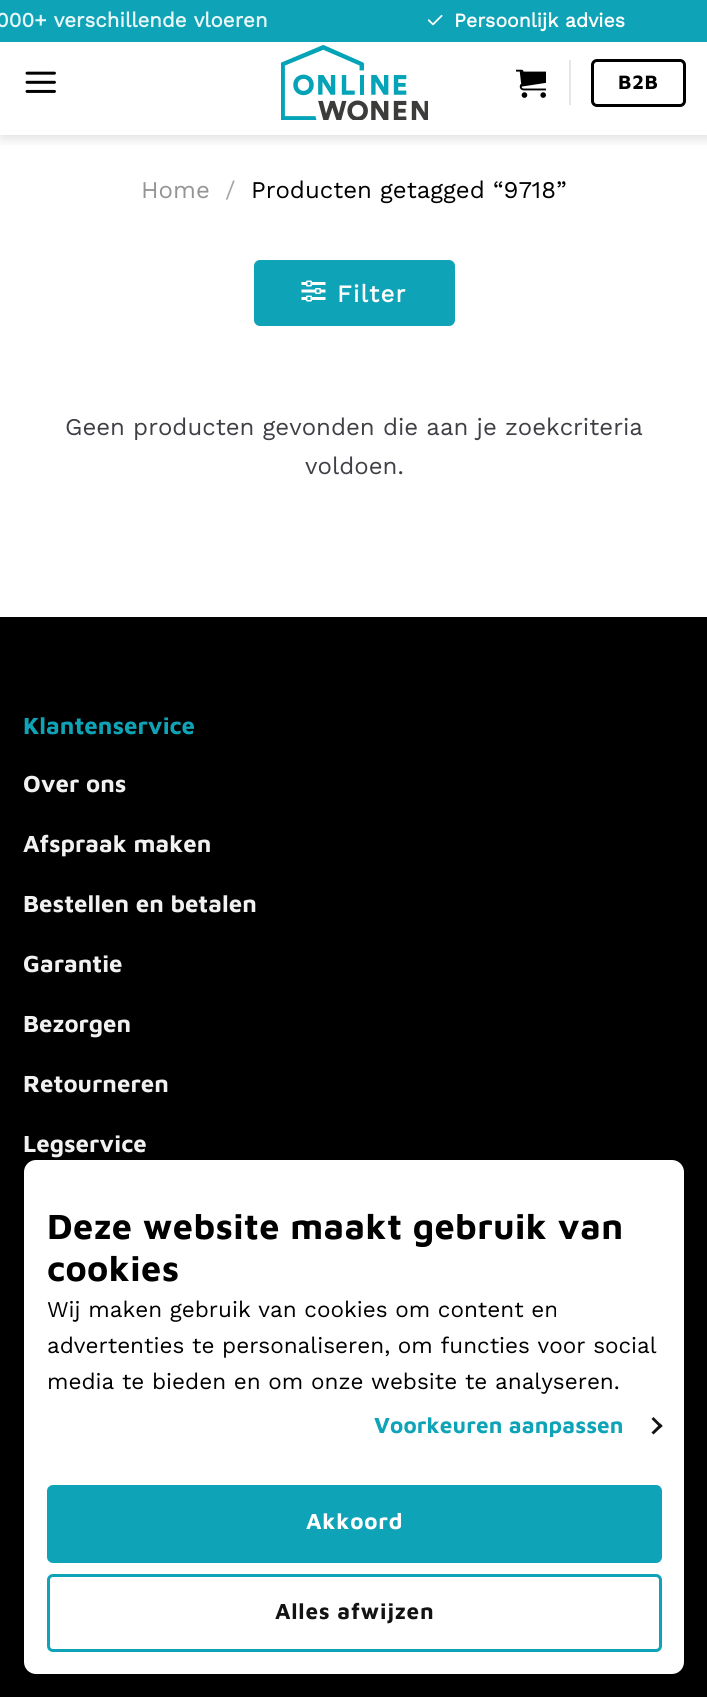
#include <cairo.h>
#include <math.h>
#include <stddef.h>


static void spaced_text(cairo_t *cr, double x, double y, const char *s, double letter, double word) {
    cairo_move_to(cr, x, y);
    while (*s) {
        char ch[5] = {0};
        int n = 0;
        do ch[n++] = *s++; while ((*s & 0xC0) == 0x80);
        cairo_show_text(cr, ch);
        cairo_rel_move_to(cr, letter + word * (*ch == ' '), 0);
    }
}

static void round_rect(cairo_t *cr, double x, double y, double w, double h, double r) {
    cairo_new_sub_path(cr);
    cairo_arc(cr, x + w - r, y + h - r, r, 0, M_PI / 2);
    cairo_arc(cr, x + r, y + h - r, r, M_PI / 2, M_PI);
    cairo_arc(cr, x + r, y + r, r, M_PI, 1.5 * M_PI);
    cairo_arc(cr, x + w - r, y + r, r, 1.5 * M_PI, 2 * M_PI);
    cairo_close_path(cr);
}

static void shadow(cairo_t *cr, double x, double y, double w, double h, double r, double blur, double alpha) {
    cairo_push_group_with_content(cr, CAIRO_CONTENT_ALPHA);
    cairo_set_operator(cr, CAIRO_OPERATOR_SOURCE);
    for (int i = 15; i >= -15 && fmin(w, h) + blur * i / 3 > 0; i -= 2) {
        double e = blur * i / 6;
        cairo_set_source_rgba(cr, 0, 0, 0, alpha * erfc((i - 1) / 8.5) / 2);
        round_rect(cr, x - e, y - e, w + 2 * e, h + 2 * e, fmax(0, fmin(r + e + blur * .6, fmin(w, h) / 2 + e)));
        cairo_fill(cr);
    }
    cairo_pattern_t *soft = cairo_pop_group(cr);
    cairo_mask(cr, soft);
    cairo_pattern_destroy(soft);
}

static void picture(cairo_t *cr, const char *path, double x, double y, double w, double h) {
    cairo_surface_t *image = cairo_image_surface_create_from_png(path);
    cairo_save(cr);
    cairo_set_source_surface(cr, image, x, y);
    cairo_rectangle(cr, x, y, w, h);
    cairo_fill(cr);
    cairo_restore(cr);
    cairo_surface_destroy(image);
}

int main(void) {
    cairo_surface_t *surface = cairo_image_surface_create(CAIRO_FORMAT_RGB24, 707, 1697);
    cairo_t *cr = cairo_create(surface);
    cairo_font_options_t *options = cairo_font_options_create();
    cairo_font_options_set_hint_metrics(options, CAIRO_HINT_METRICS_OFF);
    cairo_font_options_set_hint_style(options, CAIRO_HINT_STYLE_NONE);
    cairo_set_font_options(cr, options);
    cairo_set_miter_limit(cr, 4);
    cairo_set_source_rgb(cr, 1, 1, 1);
    cairo_paint(cr);
    cairo_save(cr);
    cairo_rectangle(cr, 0, 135, 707, 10);
    cairo_clip(cr);
    cairo_set_source_rgb(cr, 0, 0, 0);
    shadow(cr, 2, 2, 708, 135, 0, 7.5, 0.15);
    cairo_restore(cr);
    cairo_set_source_rgb(cr, 0.059, 0.639, 0.718);
    cairo_rectangle(cr, 0, 0, 707, 42);
    cairo_fill(cr);
    cairo_select_font_face(cr, "Work Sans", CAIRO_FONT_SLANT_NORMAL, CAIRO_FONT_WEIGHT_BOLD);
    cairo_set_font_size(cr, 20.5);
    cairo_set_source_rgb(cr, 0.906, 0.965, 0.973);
    cairo_move_to(cr, -4, 27);
    cairo_show_text(cr, "000+ verschillende vloeren");
    picture(cr, "img1.png", 427, 14, 16, 12);
    cairo_set_font_size(cr, 19.5);
    cairo_set_source_rgb(cr, 1, 1, 1);
    cairo_move_to(cr, 454, 27);
    cairo_show_text(cr, "Persoonlijk advies");
    picture(cr, "img2.png", 25, 71, 31, 22);
    picture(cr, "img3.png", 281, 45, 147, 75);
    picture(cr, "img4.png", 516, 69, 30, 29);
    cairo_set_source_rgb(cr, 0.902, 0.902, 0.902);
    cairo_rectangle(cr, 569, 60, 2, 45);
    cairo_fill(cr);
    round_rect(cr, 592.5, 60.5, 92, 45, 4.5);
    cairo_set_source_rgb(cr, 0, 0, 0);
    cairo_set_line_width(cr, 3);
    cairo_stroke(cr);
    cairo_select_font_face(cr, "Maven Pro", CAIRO_FONT_SLANT_NORMAL, CAIRO_FONT_WEIGHT_BOLD);
    cairo_set_font_size(cr, 20);
    spaced_text(cr, 618, 89, "B2B", 0.5, 0);
    cairo_select_font_face(cr, "Work Sans", CAIRO_FONT_SLANT_NORMAL, CAIRO_FONT_WEIGHT_NORMAL);
    cairo_set_font_size(cr, 24);
    cairo_set_source_rgb(cr, 0.58, 0.58, 0.58);
    cairo_move_to(cr, 141, 198);
    cairo_show_text(cr, "Home");
    cairo_set_source_rgb(cr, 0.651, 0.651, 0.651);
    cairo_move_to(cr, 225, 198);
    cairo_show_text(cr, "/");
    cairo_set_source_rgb(cr, 0, 0, 0);
    cairo_move_to(cr, 251, 198);
    cairo_show_text(cr, "Producten getagged “9718”");
    cairo_set_source_rgb(cr, 0.059, 0.639, 0.718);
    round_rect(cr, 254, 260, 201, 66, 6);
    cairo_fill(cr);
    picture(cr, "img5.png", 301, 280, 25, 22);
    cairo_select_font_face(cr, "Work Sans", CAIRO_FONT_SLANT_NORMAL, CAIRO_FONT_WEIGHT_BOLD);
    cairo_set_source_rgb(cr, 1, 1, 1);
    spaced_text(cr, 337, 302, "Filter", 1.25, 0);
    cairo_select_font_face(cr, "Work Sans", CAIRO_FONT_SLANT_NORMAL, CAIRO_FONT_WEIGHT_NORMAL);
    cairo_set_source_rgb(cr, 0.247, 0.247, 0.275);
    cairo_move_to(cr, 65, 435);
    cairo_show_text(cr, "Geen producten gevonden die aan je zoekcriteria");
    cairo_move_to(cr, 305, 474);
    cairo_show_text(cr, "voldoen.");
    cairo_set_source_rgb(cr, 0, 0, 0);
    cairo_rectangle(cr, 0, 617, 707, 1080);
    cairo_fill(cr);
    cairo_select_font_face(cr, "Maven Pro", CAIRO_FONT_SLANT_NORMAL, CAIRO_FONT_WEIGHT_BOLD);
    cairo_set_source_rgb(cr, 0.059, 0.639, 0.718);
    cairo_move_to(cr, 23, 734);
    cairo_show_text(cr, "Klantenservice");
    cairo_set_source_rgb(cr, 0.945, 0.945, 0.945);
    cairo_move_to(cr, 23, 792);
    cairo_show_text(cr, "Over ons");
    cairo_move_to(cr, 23, 852);
    cairo_show_text(cr, "Afspraak maken");
    cairo_move_to(cr, 23, 912);
    cairo_show_text(cr, "Bestellen en betalen");
    cairo_move_to(cr, 23, 972);
    cairo_show_text(cr, "Garantie");
    cairo_move_to(cr, 23, 1032);
    cairo_show_text(cr, "Bezorgen");
    cairo_move_to(cr, 23, 1092);
    cairo_show_text(cr, "Retourneren");
    cairo_move_to(cr, 23, 1152);
    cairo_show_text(cr, "Legservice");
    cairo_set_source_rgb(cr, 1, 1, 1);
    round_rect(cr, 24, 1160, 660, 514, 12);
    cairo_fill(cr);
    cairo_set_font_size(cr, 36);
    cairo_set_source_rgb(cr, 0, 0, 0);
    spaced_text(cr, 47, 1239, "Deze website maakt gebruik van", 0.4, 0);
    spaced_text(cr, 47, 1281, "cookies", 0.4, 0);
    cairo_select_font_face(cr, "Work Sans", CAIRO_FONT_SLANT_NORMAL, CAIRO_FONT_WEIGHT_NORMAL);
    cairo_set_font_size(cr, 22.5);
    cairo_move_to(cr, 47, 1317);
    cairo_show_text(cr, "Wij maken gebruik van cookies om content en");
    cairo_move_to(cr, 47, 1353);
    cairo_show_text(cr, "advertenties te personaliseren, om functies voor social");
    cairo_move_to(cr, 47, 1389);
    cairo_show_text(cr, "media te bieden en om onze website te analyseren.");
    cairo_select_font_face(cr, "Maven Pro", CAIRO_FONT_SLANT_NORMAL, CAIRO_FONT_WEIGHT_BOLD);
    cairo_set_source_rgb(cr, 0.059, 0.639, 0.718);
    spaced_text(cr, 374, 1433, "Voorkeuren aanpassen", 0.1, 0);
    cairo_set_source_rgb(cr, 0.078, 0.078, 0.078);
    cairo_new_path(cr);
    cairo_move_to(cr, 653.5, 1417);
    cairo_line_to(cr, 662.5, 1426);
    cairo_line_to(cr, 660.5, 1428);
    cairo_line_to(cr, 651.5, 1419);
    cairo_close_path(cr);
    cairo_fill(cr);
    cairo_new_path(cr);
    cairo_move_to(cr, 660.5, 1423.5);
    cairo_line_to(cr, 662.5, 1426);
    cairo_line_to(cr, 653.5, 1434.5);
    cairo_line_to(cr, 651.5, 1432.5);
    cairo_close_path(cr);
    cairo_fill(cr);
    cairo_set_source_rgb(cr, 0.059, 0.639, 0.718);
    round_rect(cr, 48.5, 1486.5, 612, 75, 4.5);
    cairo_fill_preserve(cr);
    cairo_stroke(cr);
    cairo_set_source_rgb(cr, 1, 1, 1);
    spaced_text(cr, 306, 1529, "Akkoord", 0.75, 0);
    round_rect(cr, 48.5, 1575.5, 612, 75, 4.5);
    cairo_set_source_rgb(cr, 0.059, 0.639, 0.718);
    cairo_stroke(cr);
    cairo_set_source_rgb(cr, 0.078, 0.078, 0.078);
    spaced_text(cr, 275, 1619, "Alles afwijzen", 0.75, 0);
    cairo_surface_write_to_png(surface, "page.png");
    cairo_font_options_destroy(options);
    cairo_destroy(cr);
    cairo_surface_destroy(surface);
    return 0;
}
